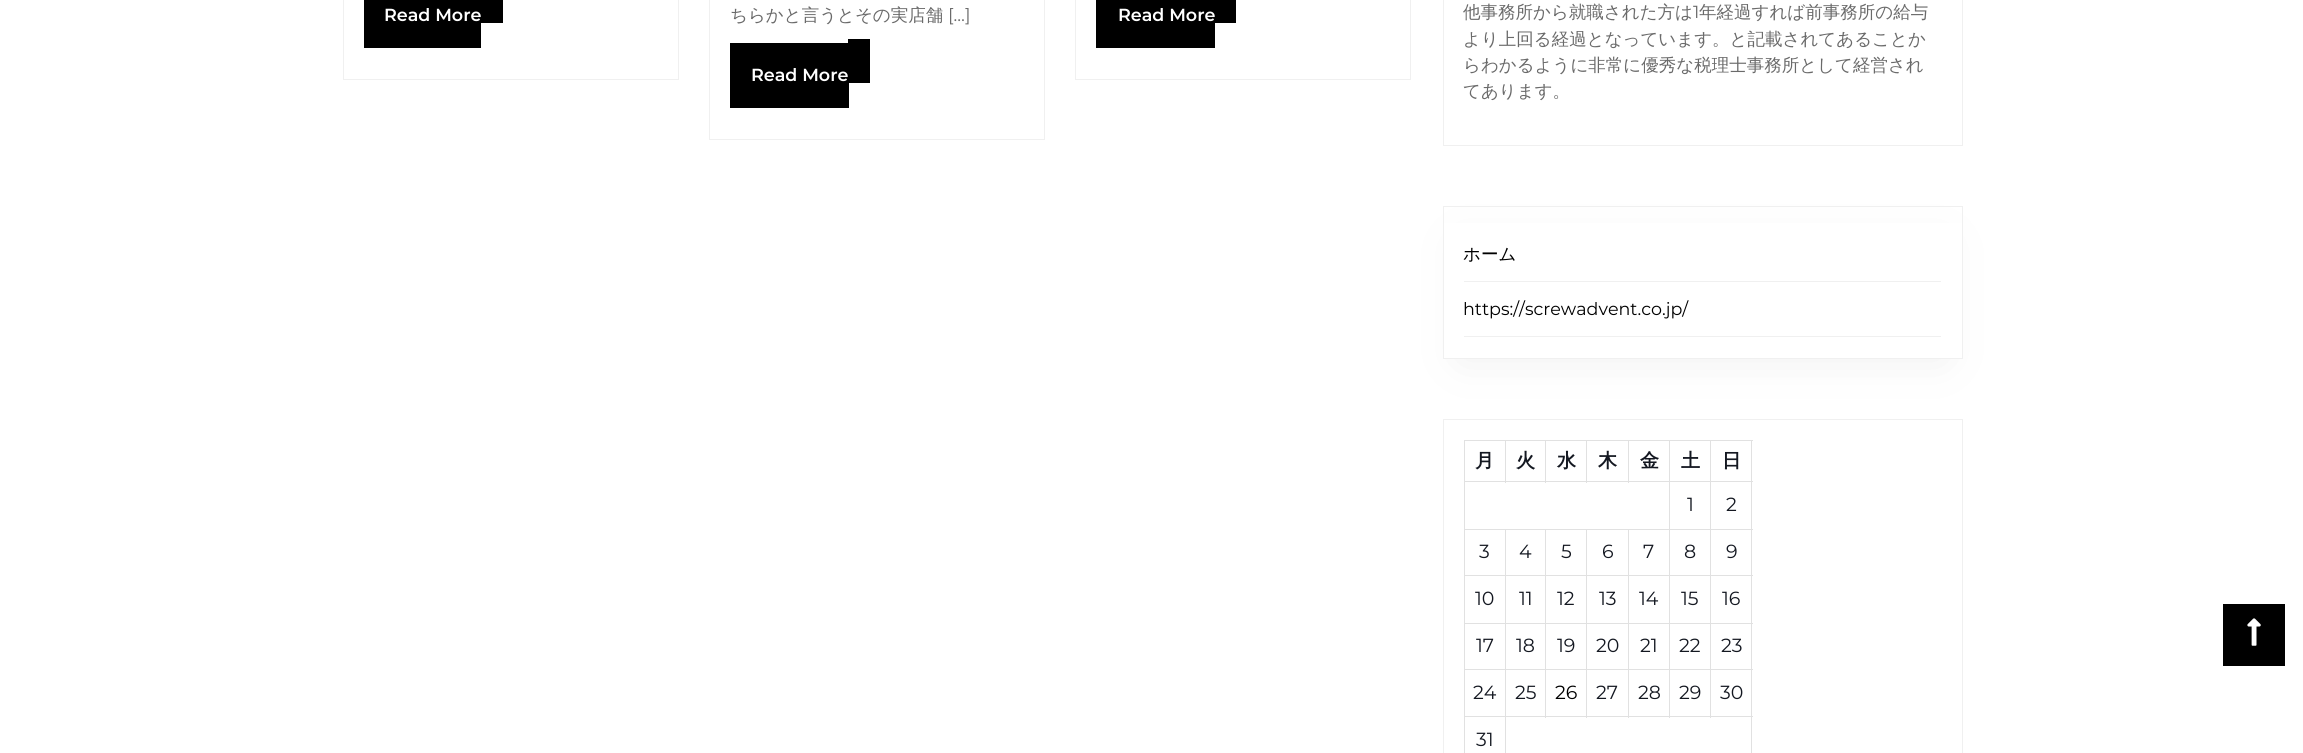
#include <cairo.h>
#include <math.h>
#include <stddef.h>


static void round_rect(cairo_t *cr, double x, double y, double w, double h, double r) {
    cairo_new_sub_path(cr);
    cairo_arc(cr, x + w - r, y + h - r, r, 0, M_PI / 2);
    cairo_arc(cr, x + r, y + h - r, r, M_PI / 2, M_PI);
    cairo_arc(cr, x + r, y + r, r, M_PI, 1.5 * M_PI);
    cairo_arc(cr, x + w - r, y + r, r, 1.5 * M_PI, 2 * M_PI);
    cairo_close_path(cr);
}

static void shadow(cairo_t *cr, double x, double y, double w, double h, double r, double blur, double alpha) {
    cairo_push_group_with_content(cr, CAIRO_CONTENT_ALPHA);
    cairo_set_operator(cr, CAIRO_OPERATOR_SOURCE);
    for (int i = 15; i >= -15 && fmin(w, h) + blur * i / 3 > 0; i -= 2) {
        double e = blur * i / 6;
        cairo_set_source_rgba(cr, 0, 0, 0, alpha * erfc((i - 1) / 8.5) / 2);
        round_rect(cr, x - e, y - e, w + 2 * e, h + 2 * e, fmax(0, fmin(r + e + blur * .6, fmin(w, h) / 2 + e)));
        cairo_fill(cr);
    }
    cairo_pattern_t *soft = cairo_pop_group(cr);
    cairo_mask(cr, soft);
    cairo_pattern_destroy(soft);
}

static void picture(cairo_t *cr, const char *path, double x, double y, double w, double h) {
    cairo_surface_t *image = cairo_image_surface_create_from_png(path);
    cairo_save(cr);
    cairo_set_source_surface(cr, image, x, y);
    cairo_rectangle(cr, x, y, w, h);
    cairo_fill(cr);
    cairo_restore(cr);
    cairo_surface_destroy(image);
}

int main(void) {
    cairo_surface_t *surface = cairo_image_surface_create(CAIRO_FORMAT_RGB24, 2303, 753);
    cairo_t *cr = cairo_create(surface);
    cairo_font_options_t *options = cairo_font_options_create();
    cairo_font_options_set_hint_metrics(options, CAIRO_HINT_METRICS_OFF);
    cairo_font_options_set_hint_style(options, CAIRO_HINT_STYLE_NONE);
    cairo_set_font_options(cr, options);
    cairo_set_miter_limit(cr, 4);
    cairo_set_source_rgb(cr, 1, 1, 1);
    cairo_paint(cr);
    cairo_rectangle(cr, 343.5, -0.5, 335, 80);
    cairo_set_source_rgb(cr, 0.941, 0.941, 0.941);
    cairo_set_line_width(cr, 1);
    cairo_stroke(cr);
    cairo_set_source_rgb(cr, 0, 0, 0);
    cairo_rectangle(cr, 364, 0, 117, 48);
    cairo_fill(cr);
    cairo_rectangle(cr, 481, 0, 22, 23);
    cairo_fill(cr);
    cairo_select_font_face(cr, "Montserrat SemiBold", CAIRO_FONT_SLANT_NORMAL, CAIRO_FONT_WEIGHT_NORMAL);
    cairo_set_font_size(cr, 17.5);
    cairo_set_source_rgb(cr, 1, 1, 1);
    cairo_move_to(cr, 384, 21);
    cairo_show_text(cr, "Read More");
    cairo_rectangle(cr, 709.5, -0.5, 335, 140);
    cairo_set_source_rgb(cr, 0.941, 0.941, 0.941);
    cairo_stroke(cr);
    cairo_select_font_face(cr, "WenQuanYi Zen Hei Medium", CAIRO_FONT_SLANT_NORMAL, CAIRO_FONT_WEIGHT_NORMAL);
    cairo_set_source_rgb(cr, 0.416, 0.416, 0.416);
    cairo_move_to(cr, 730, 21);
    cairo_show_text(cr, "ちらかと言うとその実店舗");
    cairo_select_font_face(cr, "Montserrat", CAIRO_FONT_SLANT_NORMAL, CAIRO_FONT_WEIGHT_NORMAL);
    cairo_move_to(cr, 948, 21);
    cairo_show_text(cr, "[…]");
    cairo_set_source_rgb(cr, 0, 0, 0);
    cairo_rectangle(cr, 730, 43, 119, 65);
    cairo_fill(cr);
    cairo_select_font_face(cr, "Montserrat SemiBold", CAIRO_FONT_SLANT_NORMAL, CAIRO_FONT_WEIGHT_NORMAL);
    cairo_set_source_rgb(cr, 1, 1, 1);
    cairo_move_to(cr, 751, 81);
    cairo_show_text(cr, "Read More");
    cairo_set_source_rgb(cr, 0, 0, 0);
    cairo_rectangle(cr, 848, 39, 22, 44);
    cairo_fill(cr);
    cairo_rectangle(cr, 1075.5, -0.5, 335, 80);
    cairo_set_source_rgb(cr, 0.941, 0.941, 0.941);
    cairo_stroke(cr);
    cairo_set_source_rgb(cr, 0, 0, 0);
    cairo_rectangle(cr, 1096, 0, 119, 48);
    cairo_fill(cr);
    cairo_set_source_rgb(cr, 1, 1, 1);
    cairo_move_to(cr, 1118, 21);
    cairo_show_text(cr, "Read More");
    cairo_set_source_rgb(cr, 0, 0, 0);
    cairo_rectangle(cr, 1215, 0, 21, 23);
    cairo_fill(cr);
    cairo_rectangle(cr, 1443.5, -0.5, 519, 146);
    cairo_set_source_rgb(cr, 0.941, 0.941, 0.941);
    cairo_stroke(cr);
    cairo_select_font_face(cr, "WenQuanYi Zen Hei Medium", CAIRO_FONT_SLANT_NORMAL, CAIRO_FONT_WEIGHT_NORMAL);
    cairo_set_source_rgb(cr, 0.416, 0.416, 0.416);
    cairo_move_to(cr, 1463, 18);
    cairo_show_text(cr, "他事務所から就職された方は");
    cairo_select_font_face(cr, "Montserrat", CAIRO_FONT_SLANT_NORMAL, CAIRO_FONT_WEIGHT_NORMAL);
    cairo_move_to(cr, 1693, 18);
    cairo_show_text(cr, "1");
    cairo_select_font_face(cr, "WenQuanYi Zen Hei Medium", CAIRO_FONT_SLANT_NORMAL, CAIRO_FONT_WEIGHT_NORMAL);
    cairo_move_to(cr, 1699, 18);
    cairo_show_text(cr, "年経過すれば前事務所の給与");
    cairo_move_to(cr, 1463, 45);
    cairo_show_text(cr, "より上回る経過となっています。と記載されてあることか");
    cairo_move_to(cr, 1463, 71);
    cairo_show_text(cr, "らわかるように非常に優秀な税理士事務所として経営され");
    cairo_move_to(cr, 1463, 97);
    cairo_show_text(cr, "てあります。");
    cairo_set_source_rgb(cr, 0.941, 0.941, 0.941);
    shadow(cr, 1461, 244, 483, 115, 0, 22, 1);
    cairo_set_source_rgb(cr, 1, 1, 1);
    cairo_rectangle(cr, 1444, 223, 518, 135);
    cairo_fill(cr);
    cairo_rectangle(cr, 1443.5, 206.5, 519, 152);
    cairo_set_source_rgb(cr, 0.941, 0.941, 0.941);
    cairo_stroke(cr);
    cairo_rectangle(cr, 1464, 281, 477, 1);
    cairo_fill(cr);
    cairo_set_source_rgb(cr, 0, 0, 0);
    cairo_move_to(cr, 1463, 260);
    cairo_show_text(cr, "ホーム");
    cairo_set_source_rgb(cr, 0.941, 0.941, 0.941);
    cairo_rectangle(cr, 1464, 336, 477, 1);
    cairo_fill(cr);
    cairo_select_font_face(cr, "Montserrat", CAIRO_FONT_SLANT_NORMAL, CAIRO_FONT_WEIGHT_NORMAL);
    cairo_set_source_rgb(cr, 0, 0, 0);
    cairo_move_to(cr, 1463, 315);
    cairo_show_text(cr, "https://screwadvent.co.jp/");
    cairo_rectangle(cr, 1443.5, 419.5, 519, 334);
    cairo_set_source_rgb(cr, 0.941, 0.941, 0.941);
    cairo_stroke(cr);
    cairo_set_source_rgb(cr, 0.882, 0.882, 0.882);
    cairo_rectangle(cr, 1464, 440, 289, 1);
    cairo_fill(cr);
    cairo_rectangle(cr, 1751, 440, 1, 313);
    cairo_fill(cr);
    cairo_rectangle(cr, 1464, 440, 1, 313);
    cairo_fill(cr);
    cairo_select_font_face(cr, "WenQuanYi Zen Hei", CAIRO_FONT_SLANT_NORMAL, CAIRO_FONT_WEIGHT_BOLD);
    cairo_set_font_size(cr, 19);
    cairo_set_source_rgb(cr, 0.082, 0.094, 0.129);
    cairo_move_to(cr, 1475, 467);
    cairo_show_text(cr, "月");
    cairo_set_source_rgb(cr, 0.882, 0.882, 0.882);
    cairo_rectangle(cr, 1710, 481, 43, 1);
    cairo_fill(cr);
    cairo_rectangle(cr, 1710, 529, 43, 1);
    cairo_fill(cr);
    cairo_rectangle(cr, 1710, 575, 43, 1);
    cairo_fill(cr);
    cairo_rectangle(cr, 1710, 623, 43, 1);
    cairo_fill(cr);
    cairo_rectangle(cr, 1710, 669, 43, 1);
    cairo_fill(cr);
    cairo_rectangle(cr, 1505, 716, 248, 1);
    cairo_fill(cr);
    cairo_rectangle(cr, 1710, 669, 1, 49);
    cairo_fill(cr);
    cairo_rectangle(cr, 1669, 669, 42, 1);
    cairo_fill(cr);
    cairo_rectangle(cr, 1710, 623, 1, 47);
    cairo_fill(cr);
    cairo_rectangle(cr, 1669, 623, 42, 1);
    cairo_fill(cr);
    cairo_rectangle(cr, 1710, 575, 1, 49);
    cairo_fill(cr);
    cairo_rectangle(cr, 1669, 575, 42, 1);
    cairo_fill(cr);
    cairo_rectangle(cr, 1710, 529, 1, 47);
    cairo_fill(cr);
    cairo_rectangle(cr, 1669, 529, 42, 1);
    cairo_fill(cr);
    cairo_rectangle(cr, 1710, 481, 1, 49);
    cairo_fill(cr);
    cairo_rectangle(cr, 1669, 481, 42, 1);
    cairo_fill(cr);
    cairo_rectangle(cr, 1669, 669, 1, 49);
    cairo_fill(cr);
    cairo_rectangle(cr, 1628, 669, 42, 1);
    cairo_fill(cr);
    cairo_rectangle(cr, 1669, 623, 1, 47);
    cairo_fill(cr);
    cairo_rectangle(cr, 1628, 623, 42, 1);
    cairo_fill(cr);
    cairo_rectangle(cr, 1669, 575, 1, 49);
    cairo_fill(cr);
    cairo_rectangle(cr, 1628, 575, 42, 1);
    cairo_fill(cr);
    cairo_rectangle(cr, 1669, 529, 1, 47);
    cairo_fill(cr);
    cairo_rectangle(cr, 1628, 529, 42, 1);
    cairo_fill(cr);
    cairo_rectangle(cr, 1669, 481, 1, 49);
    cairo_fill(cr);
    cairo_rectangle(cr, 1464, 481, 206, 1);
    cairo_fill(cr);
    cairo_rectangle(cr, 1505, 440, 1, 43);
    cairo_fill(cr);
    cairo_set_source_rgb(cr, 0.082, 0.094, 0.129);
    cairo_move_to(cr, 1516, 467);
    cairo_show_text(cr, "火");
    cairo_set_source_rgb(cr, 0.882, 0.882, 0.882);
    cairo_rectangle(cr, 1545, 440, 1, 43);
    cairo_fill(cr);
    cairo_set_source_rgb(cr, 0.082, 0.094, 0.129);
    cairo_move_to(cr, 1557, 467);
    cairo_show_text(cr, "水");
    cairo_set_source_rgb(cr, 0.882, 0.882, 0.882);
    cairo_rectangle(cr, 1586, 440, 1, 43);
    cairo_fill(cr);
    cairo_set_source_rgb(cr, 0.082, 0.094, 0.129);
    cairo_move_to(cr, 1598, 467);
    cairo_show_text(cr, "木");
    cairo_set_source_rgb(cr, 0.882, 0.882, 0.882);
    cairo_rectangle(cr, 1628, 440, 1, 43);
    cairo_fill(cr);
    cairo_set_source_rgb(cr, 0.082, 0.094, 0.129);
    cairo_move_to(cr, 1640, 467);
    cairo_show_text(cr, "金");
    cairo_set_source_rgb(cr, 0.882, 0.882, 0.882);
    cairo_rectangle(cr, 1669, 440, 1, 43);
    cairo_fill(cr);
    cairo_set_source_rgb(cr, 0.082, 0.094, 0.129);
    cairo_move_to(cr, 1681, 467);
    cairo_show_text(cr, "土");
    cairo_set_source_rgb(cr, 0.882, 0.882, 0.882);
    cairo_rectangle(cr, 1710, 440, 1, 43);
    cairo_fill(cr);
    cairo_set_source_rgb(cr, 0.082, 0.094, 0.129);
    cairo_move_to(cr, 1722, 467);
    cairo_show_text(cr, "日");
    cairo_select_font_face(cr, "Montserrat", CAIRO_FONT_SLANT_NORMAL, CAIRO_FONT_WEIGHT_NORMAL);
    cairo_move_to(cr, 1687, 511);
    cairo_show_text(cr, "1");
    cairo_move_to(cr, 1726, 511);
    cairo_show_text(cr, "2");
    cairo_set_source_rgb(cr, 0.882, 0.882, 0.882);
    cairo_rectangle(cr, 1628, 669, 1, 49);
    cairo_fill(cr);
    cairo_rectangle(cr, 1586, 669, 43, 1);
    cairo_fill(cr);
    cairo_rectangle(cr, 1628, 623, 1, 47);
    cairo_fill(cr);
    cairo_rectangle(cr, 1586, 623, 43, 1);
    cairo_fill(cr);
    cairo_rectangle(cr, 1628, 575, 1, 49);
    cairo_fill(cr);
    cairo_rectangle(cr, 1586, 575, 43, 1);
    cairo_fill(cr);
    cairo_rectangle(cr, 1628, 529, 1, 47);
    cairo_fill(cr);
    cairo_rectangle(cr, 1586, 529, 43, 1);
    cairo_fill(cr);
    cairo_rectangle(cr, 1586, 669, 1, 49);
    cairo_fill(cr);
    cairo_rectangle(cr, 1545, 669, 43, 1);
    cairo_fill(cr);
    cairo_rectangle(cr, 1586, 623, 1, 47);
    cairo_fill(cr);
    cairo_rectangle(cr, 1545, 623, 43, 1);
    cairo_fill(cr);
    cairo_rectangle(cr, 1586, 575, 1, 49);
    cairo_fill(cr);
    cairo_rectangle(cr, 1545, 575, 43, 1);
    cairo_fill(cr);
    cairo_rectangle(cr, 1586, 529, 1, 47);
    cairo_fill(cr);
    cairo_rectangle(cr, 1545, 529, 43, 1);
    cairo_fill(cr);
    cairo_rectangle(cr, 1545, 669, 1, 49);
    cairo_fill(cr);
    cairo_rectangle(cr, 1505, 669, 41, 1);
    cairo_fill(cr);
    cairo_rectangle(cr, 1545, 623, 1, 47);
    cairo_fill(cr);
    cairo_rectangle(cr, 1505, 623, 41, 1);
    cairo_fill(cr);
    cairo_rectangle(cr, 1545, 575, 1, 49);
    cairo_fill(cr);
    cairo_rectangle(cr, 1505, 575, 41, 1);
    cairo_fill(cr);
    cairo_rectangle(cr, 1545, 529, 1, 47);
    cairo_fill(cr);
    cairo_rectangle(cr, 1505, 529, 41, 1);
    cairo_fill(cr);
    cairo_rectangle(cr, 1505, 716, 1, 37);
    cairo_fill(cr);
    cairo_rectangle(cr, 1464, 716, 42, 1);
    cairo_fill(cr);
    cairo_rectangle(cr, 1505, 669, 1, 49);
    cairo_fill(cr);
    cairo_rectangle(cr, 1464, 669, 42, 1);
    cairo_fill(cr);
    cairo_rectangle(cr, 1505, 623, 1, 47);
    cairo_fill(cr);
    cairo_rectangle(cr, 1464, 623, 42, 1);
    cairo_fill(cr);
    cairo_rectangle(cr, 1505, 575, 1, 49);
    cairo_fill(cr);
    cairo_rectangle(cr, 1464, 575, 42, 1);
    cairo_fill(cr);
    cairo_rectangle(cr, 1505, 529, 1, 47);
    cairo_fill(cr);
    cairo_rectangle(cr, 1464, 529, 42, 1);
    cairo_fill(cr);
    cairo_set_source_rgb(cr, 0.082, 0.094, 0.129);
    cairo_move_to(cr, 1479, 558);
    cairo_show_text(cr, "3");
    cairo_move_to(cr, 1519, 558);
    cairo_show_text(cr, "4");
    cairo_move_to(cr, 1561, 558);
    cairo_show_text(cr, "5");
    cairo_move_to(cr, 1602, 558);
    cairo_show_text(cr, "6");
    cairo_move_to(cr, 1643, 558);
    cairo_show_text(cr, "7");
    cairo_move_to(cr, 1684, 558);
    cairo_show_text(cr, "8");
    cairo_move_to(cr, 1726, 558);
    cairo_show_text(cr, "9");
    cairo_move_to(cr, 1475, 605);
    cairo_show_text(cr, "10");
    cairo_move_to(cr, 1519, 605);
    cairo_show_text(cr, "11");
    cairo_move_to(cr, 1557, 605);
    cairo_show_text(cr, "12");
    cairo_move_to(cr, 1599, 605);
    cairo_show_text(cr, "13");
    cairo_move_to(cr, 1639, 605);
    cairo_show_text(cr, "14");
    cairo_move_to(cr, 1681, 605);
    cairo_show_text(cr, "15");
    cairo_move_to(cr, 1722, 605);
    cairo_show_text(cr, "16");
    cairo_move_to(cr, 1476, 652);
    cairo_show_text(cr, "17");
    cairo_move_to(cr, 1516, 652);
    cairo_show_text(cr, "18");
    cairo_move_to(cr, 1557, 652);
    cairo_show_text(cr, "19");
    cairo_move_to(cr, 1596, 652);
    cairo_show_text(cr, "20");
    cairo_move_to(cr, 1640, 652);
    cairo_show_text(cr, "21");
    cairo_move_to(cr, 1679, 652);
    cairo_show_text(cr, "22");
    cairo_move_to(cr, 1721, 652);
    cairo_show_text(cr, "23");
    cairo_move_to(cr, 1473, 699);
    cairo_show_text(cr, "24");
    cairo_move_to(cr, 1515, 699);
    cairo_show_text(cr, "25");
    cairo_set_source_rgb(cr, 0, 0, 0);
    cairo_move_to(cr, 1555, 699);
    cairo_show_text(cr, "26");
    cairo_set_source_rgb(cr, 0.082, 0.094, 0.129);
    cairo_move_to(cr, 1596, 699);
    cairo_show_text(cr, "27");
    cairo_move_to(cr, 1638, 699);
    cairo_show_text(cr, "28");
    cairo_move_to(cr, 1679, 699);
    cairo_show_text(cr, "29");
    cairo_move_to(cr, 1720, 699);
    cairo_show_text(cr, "30");
    cairo_move_to(cr, 1476, 746);
    cairo_show_text(cr, "31");
    cairo_set_source_rgb(cr, 0, 0, 0);
    cairo_rectangle(cr, 2223, 604, 62, 62);
    cairo_fill(cr);
    picture(cr, "img1.png", 2247, 618, 14, 28);
    cairo_surface_write_to_png(surface, "page.png");
    cairo_font_options_destroy(options);
    cairo_destroy(cr);
    cairo_surface_destroy(surface);
    return 0;
}
